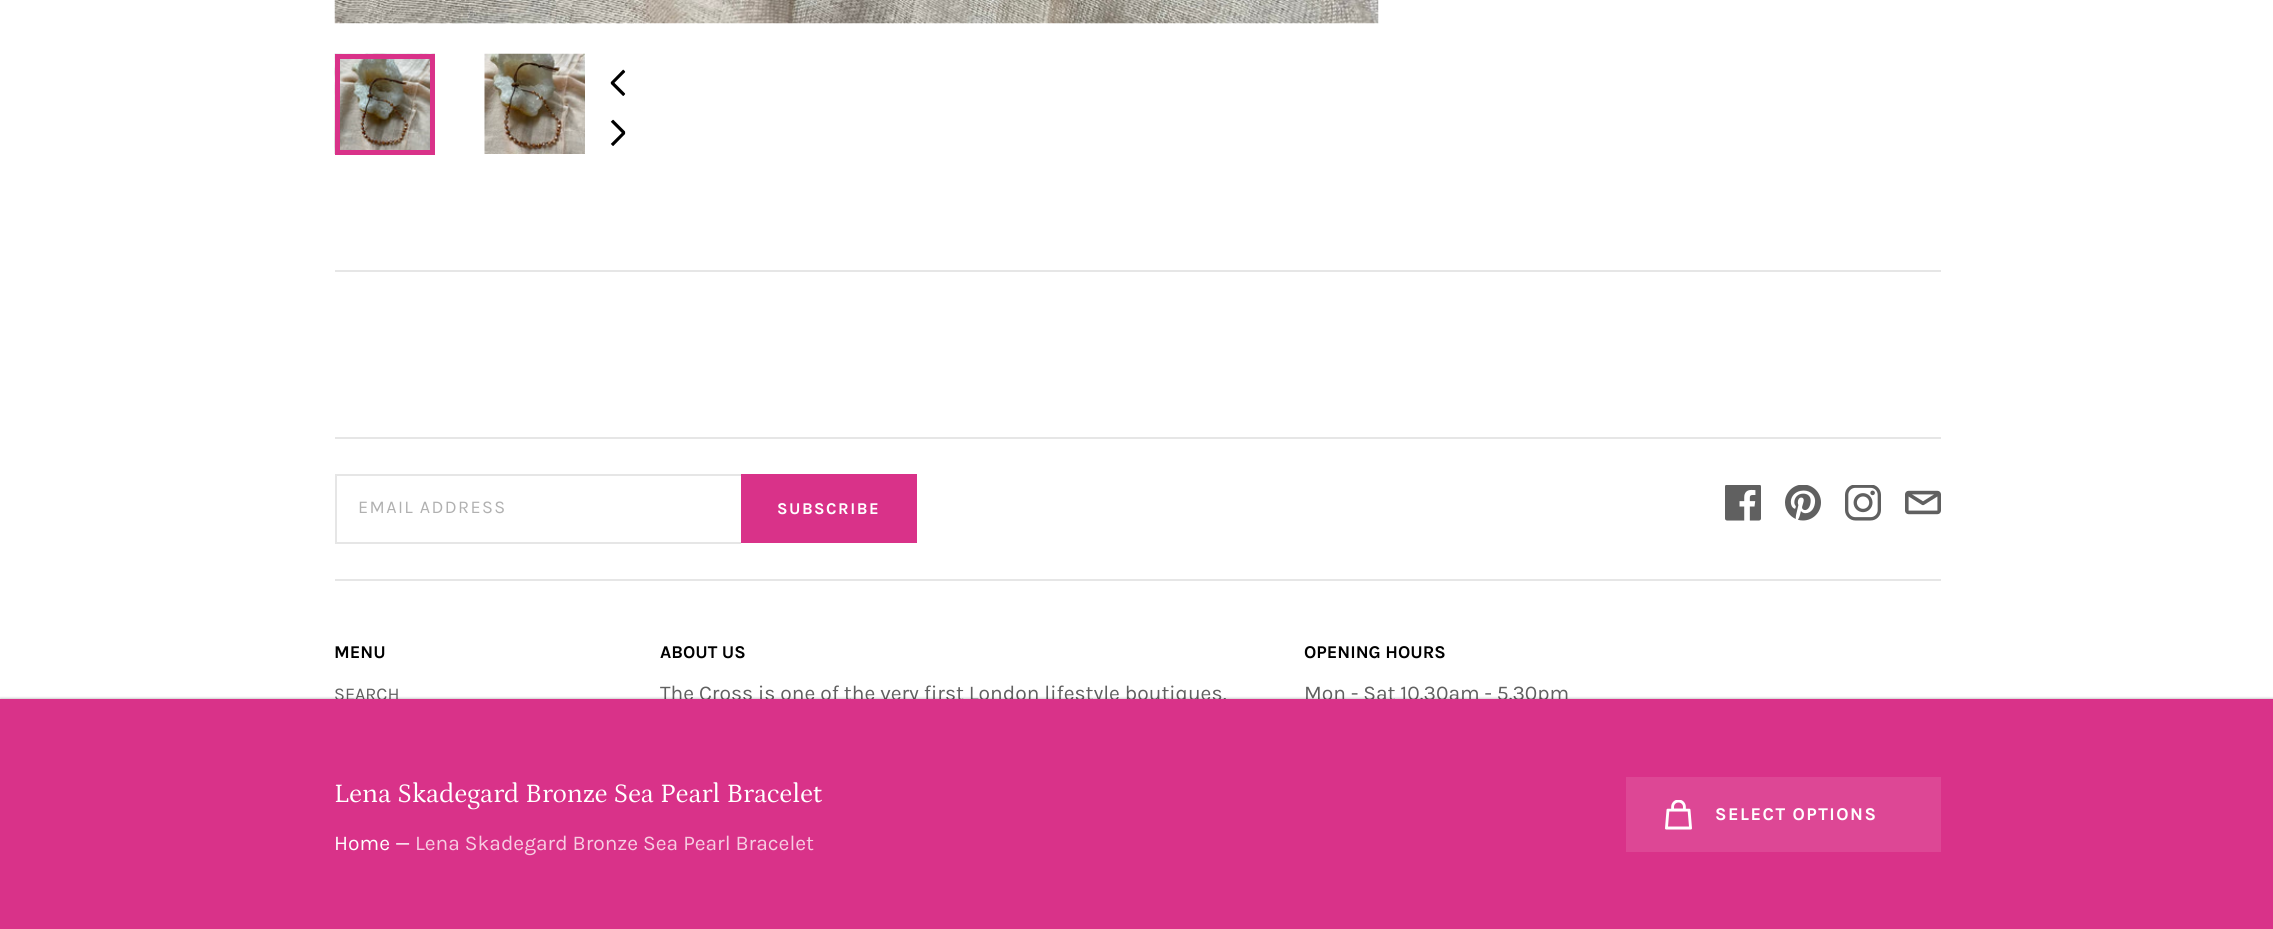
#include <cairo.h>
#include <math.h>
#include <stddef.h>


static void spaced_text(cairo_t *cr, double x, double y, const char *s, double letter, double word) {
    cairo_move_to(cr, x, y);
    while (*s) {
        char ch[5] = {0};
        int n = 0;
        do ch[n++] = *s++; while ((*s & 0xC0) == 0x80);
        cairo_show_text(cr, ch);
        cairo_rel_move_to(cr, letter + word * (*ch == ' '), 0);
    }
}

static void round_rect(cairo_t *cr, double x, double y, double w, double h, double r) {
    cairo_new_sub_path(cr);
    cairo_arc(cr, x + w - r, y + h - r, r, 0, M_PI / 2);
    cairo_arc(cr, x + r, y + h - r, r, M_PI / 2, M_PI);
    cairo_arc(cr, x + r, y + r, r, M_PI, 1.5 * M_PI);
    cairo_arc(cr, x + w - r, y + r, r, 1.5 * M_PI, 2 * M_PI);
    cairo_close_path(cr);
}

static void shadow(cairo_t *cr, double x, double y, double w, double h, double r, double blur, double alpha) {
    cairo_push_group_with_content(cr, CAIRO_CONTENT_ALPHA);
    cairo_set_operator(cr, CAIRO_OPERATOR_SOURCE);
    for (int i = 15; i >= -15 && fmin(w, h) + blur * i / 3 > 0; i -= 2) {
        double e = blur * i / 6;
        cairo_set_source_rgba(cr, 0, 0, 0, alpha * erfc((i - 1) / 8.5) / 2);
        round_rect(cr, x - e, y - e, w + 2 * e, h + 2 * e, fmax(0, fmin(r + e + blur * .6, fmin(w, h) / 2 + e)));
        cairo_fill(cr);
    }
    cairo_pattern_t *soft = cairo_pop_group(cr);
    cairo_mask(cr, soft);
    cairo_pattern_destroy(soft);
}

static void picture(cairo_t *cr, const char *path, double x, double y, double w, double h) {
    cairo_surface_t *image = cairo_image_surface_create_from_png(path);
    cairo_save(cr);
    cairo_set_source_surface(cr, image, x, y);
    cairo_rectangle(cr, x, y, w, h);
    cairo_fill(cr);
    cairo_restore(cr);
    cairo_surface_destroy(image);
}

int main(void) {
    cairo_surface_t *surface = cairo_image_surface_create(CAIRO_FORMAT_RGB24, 2273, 929);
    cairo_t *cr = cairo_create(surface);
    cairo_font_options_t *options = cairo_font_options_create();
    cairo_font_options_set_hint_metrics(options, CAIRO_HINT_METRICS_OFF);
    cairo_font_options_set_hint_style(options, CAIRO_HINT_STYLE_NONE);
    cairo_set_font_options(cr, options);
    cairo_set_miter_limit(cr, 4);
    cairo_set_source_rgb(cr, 1, 1, 1);
    cairo_paint(cr);
    cairo_set_source_rgb(cr, 0.902, 0.902, 0.902);
    cairo_rectangle(cr, 335, 437, 1606, 2);
    cairo_fill(cr);
    cairo_rectangle(cr, 335, 474, 406, 2);
    cairo_fill(cr);
    cairo_rectangle(cr, 335, 542, 406, 2);
    cairo_fill(cr);
    cairo_rectangle(cr, 335, 474, 2, 69);
    cairo_fill(cr);
    cairo_select_font_face(cr, "Karla", CAIRO_FONT_SLANT_NORMAL, CAIRO_FONT_WEIGHT_NORMAL);
    cairo_set_font_size(cr, 18);
    cairo_set_source_rgb(cr, 0.69, 0.69, 0.69);
    spaced_text(cr, 358, 513, "EMAIL ADDRESS", 1.4, 0);
    cairo_set_source_rgb(cr, 0.851, 0.196, 0.537);
    cairo_rectangle(cr, 741, 474, 176, 69);
    cairo_fill(cr);
    cairo_select_font_face(cr, "Karla", CAIRO_FONT_SLANT_NORMAL, CAIRO_FONT_WEIGHT_BOLD);
    cairo_set_font_size(cr, 16.5);
    cairo_set_source_rgb(cr, 1, 1, 1);
    spaced_text(cr, 777, 514, "SUBSCRIBE", 1.5, 0);
    picture(cr, "img1.png", 1725, 485, 36, 36);
    picture(cr, "img2.png", 1785, 485, 36, 36);
    picture(cr, "img3.png", 1845, 485, 36, 36);
    picture(cr, "img4.png", 1905, 490, 36, 25);
    cairo_set_source_rgb(cr, 0.902, 0.902, 0.902);
    cairo_rectangle(cr, 335, 579, 1606, 2);
    cairo_fill(cr);
    cairo_set_font_size(cr, 18);
    cairo_set_source_rgb(cr, 0, 0, 0);
    cairo_move_to(cr, 334, 658);
    cairo_show_text(cr, "MENU");
    cairo_select_font_face(cr, "Karla", CAIRO_FONT_SLANT_NORMAL, CAIRO_FONT_WEIGHT_NORMAL);
    cairo_set_source_rgb(cr, 0.376, 0.376, 0.376);
    cairo_move_to(cr, 334, 700);
    cairo_show_text(cr, "SEARCH");
    cairo_select_font_face(cr, "Karla", CAIRO_FONT_SLANT_NORMAL, CAIRO_FONT_WEIGHT_BOLD);
    cairo_set_source_rgb(cr, 0, 0, 0);
    cairo_move_to(cr, 660, 658);
    cairo_show_text(cr, "ABOUT US");
    cairo_select_font_face(cr, "Karla", CAIRO_FONT_SLANT_NORMAL, CAIRO_FONT_WEIGHT_NORMAL);
    cairo_set_font_size(cr, 21);
    cairo_set_source_rgb(cr, 0.376, 0.376, 0.376);
    cairo_move_to(cr, 660, 700);
    cairo_show_text(cr, "The Cross is one of the very first London lifestyle boutiques,");
    cairo_select_font_face(cr, "Karla", CAIRO_FONT_SLANT_NORMAL, CAIRO_FONT_WEIGHT_BOLD);
    cairo_set_font_size(cr, 18);
    cairo_set_source_rgb(cr, 0, 0, 0);
    cairo_move_to(cr, 1304, 658);
    cairo_show_text(cr, "OPENING HOURS");
    cairo_select_font_face(cr, "Karla", CAIRO_FONT_SLANT_NORMAL, CAIRO_FONT_WEIGHT_NORMAL);
    cairo_set_font_size(cr, 21);
    cairo_set_source_rgb(cr, 0.376, 0.376, 0.376);
    cairo_move_to(cr, 1304, 700);
    cairo_show_text(cr, "Mon - Sat 10.30am - 5.30pm");
    cairo_set_source_rgb(cr, 0.902, 0.902, 0.902);
    cairo_rectangle(cr, 335, 270, 1606, 2);
    cairo_fill(cr);
    picture(cr, "img5.png", 334, 0, 1045, 24);
    picture(cr, "img6.png", 334, 53, 101, 101);
    cairo_rectangle(cr, 337.5, 56.5, 95, 96);
    cairo_set_source_rgb(cr, 0.851, 0.196, 0.537);
    cairo_set_line_width(cr, 5);
    cairo_stroke(cr);
    picture(cr, "img7.png", 484, 53, 101, 101);
    picture(cr, "img8.png", 610, 69, 16, 27);
    picture(cr, "img9.png", 610, 119, 16, 27);
    cairo_set_source_rgb(cr, 0, 0, 0);
    shadow(cr, 0, 698, 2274, 231, 0, 1, 0.2);
    cairo_set_source_rgb(cr, 0.851, 0.196, 0.537);
    cairo_rectangle(cr, 0, 699, 2273, 230);
    cairo_fill(cr);
    cairo_select_font_face(cr, "Petrona", CAIRO_FONT_SLANT_NORMAL, CAIRO_FONT_WEIGHT_NORMAL);
    cairo_set_font_size(cr, 27);
    cairo_set_source_rgb(cr, 1, 1, 1);
    cairo_move_to(cr, 334, 802);
    cairo_show_text(cr, "Lena Skadegard Bronze Sea Pearl Bracelet");
    cairo_select_font_face(cr, "Karla", CAIRO_FONT_SLANT_NORMAL, CAIRO_FONT_WEIGHT_NORMAL);
    cairo_set_font_size(cr, 21);
    cairo_move_to(cr, 334, 850);
    cairo_show_text(cr, "Home —");
    cairo_set_source_rgb(cr, 0.965, 0.8, 0.886);
    cairo_move_to(cr, 415, 850);
    cairo_show_text(cr, "Lena Skadegard Bronze Sea Pearl Bracelet");
    cairo_set_source_rgb(cr, 0.867, 0.278, 0.584);
    cairo_rectangle(cr, 1626, 777, 315, 75);
    cairo_fill(cr);
    picture(cr, "img10.png", 1665, 800, 27, 30);
    cairo_select_font_face(cr, "Karla", CAIRO_FONT_SLANT_NORMAL, CAIRO_FONT_WEIGHT_BOLD);
    cairo_set_font_size(cr, 18);
    cairo_set_source_rgb(cr, 1, 1, 1);
    spaced_text(cr, 1715, 820, "SELECT OPTIONS", 1.5, 0);
    cairo_surface_write_to_png(surface, "page.png");
    cairo_font_options_destroy(options);
    cairo_destroy(cr);
    cairo_surface_destroy(surface);
    return 0;
}
